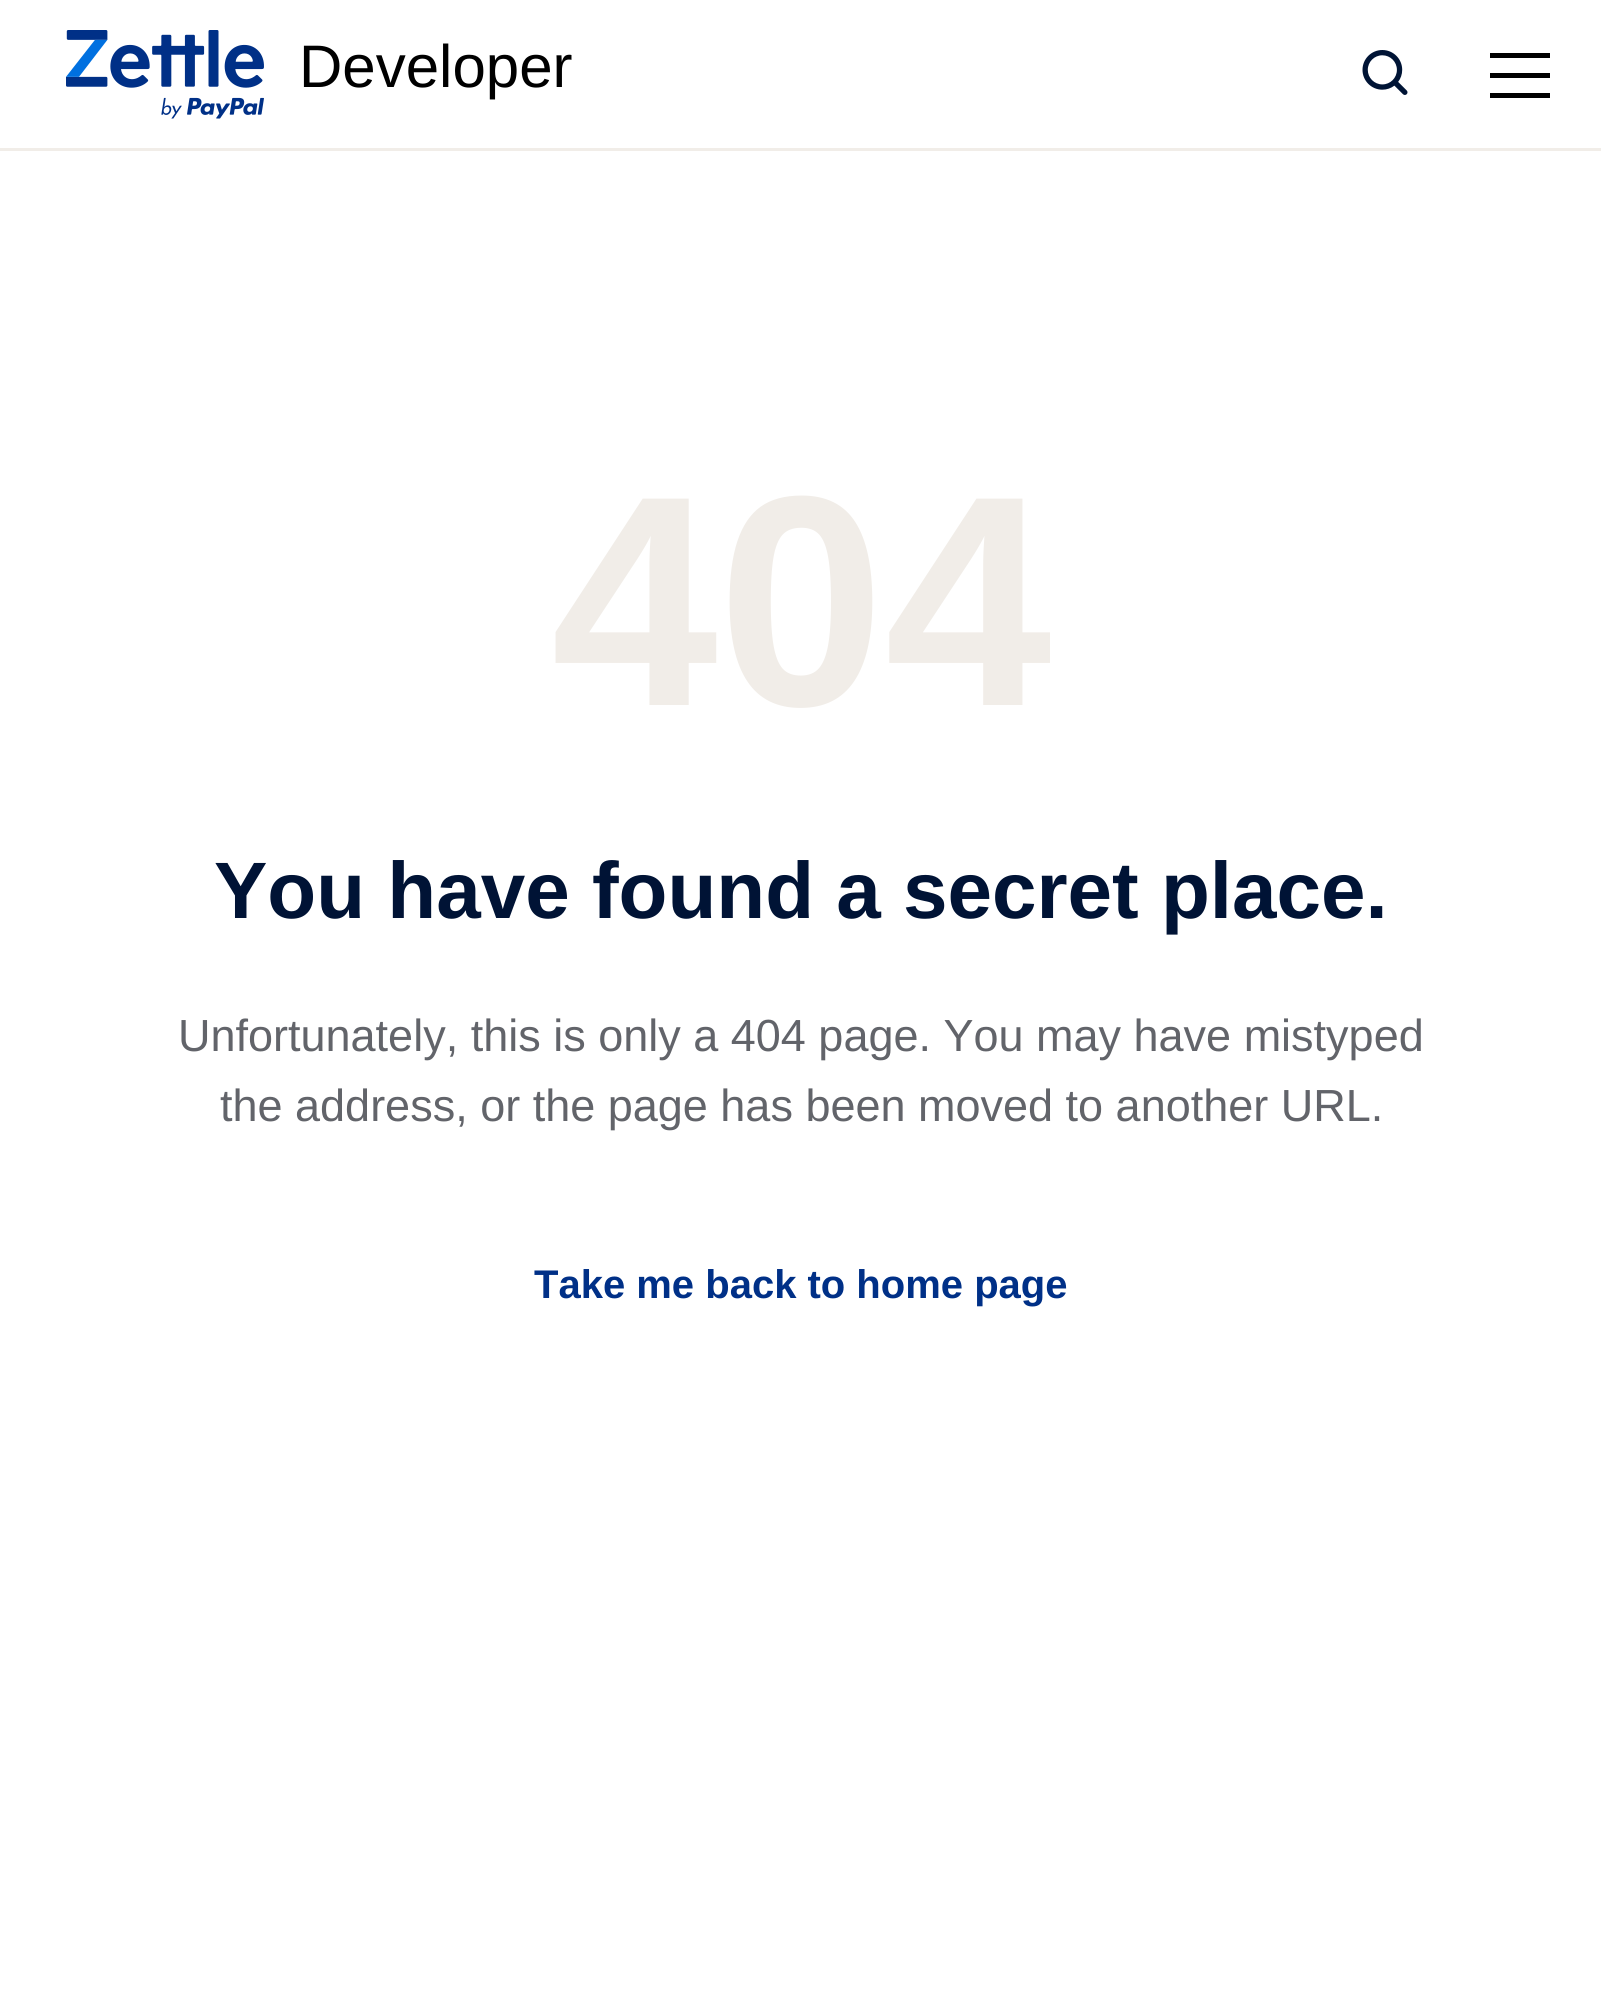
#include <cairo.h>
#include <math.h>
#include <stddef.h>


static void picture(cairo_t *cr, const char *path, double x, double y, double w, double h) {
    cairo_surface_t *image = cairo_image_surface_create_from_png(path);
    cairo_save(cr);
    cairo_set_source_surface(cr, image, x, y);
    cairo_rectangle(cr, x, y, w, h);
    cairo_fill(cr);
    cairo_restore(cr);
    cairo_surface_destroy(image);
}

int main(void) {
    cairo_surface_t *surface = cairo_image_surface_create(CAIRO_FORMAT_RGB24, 1601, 2009);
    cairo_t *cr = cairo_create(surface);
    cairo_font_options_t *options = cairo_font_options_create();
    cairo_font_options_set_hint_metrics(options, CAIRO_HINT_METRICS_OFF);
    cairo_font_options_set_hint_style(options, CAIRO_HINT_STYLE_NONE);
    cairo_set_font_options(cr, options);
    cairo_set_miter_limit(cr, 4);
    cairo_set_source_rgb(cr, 1, 1, 1);
    cairo_paint(cr);
    cairo_set_source_rgb(cr, 0.945, 0.929, 0.91);
    cairo_rectangle(cr, 0, 148, 1601, 3);
    cairo_fill(cr);
    picture(cr, "img1.png", 66, 30, 198, 89);
    cairo_select_font_face(cr, "Liberation Sans", CAIRO_FONT_SLANT_NORMAL, CAIRO_FONT_WEIGHT_NORMAL);
    cairo_set_font_size(cr, 60);
    cairo_set_source_rgb(cr, 0, 0, 0);
    cairo_move_to(cr, 299, 87);
    cairo_show_text(cr, "Developer");
    picture(cr, "img2.png", 1362, 50, 46, 45);
    cairo_rectangle(cr, 1490, 73, 60, 5);
    cairo_fill(cr);
    cairo_rectangle(cr, 1490, 53, 60, 5);
    cairo_fill(cr);
    cairo_rectangle(cr, 1490, 93, 60, 5);
    cairo_fill(cr);
    cairo_select_font_face(cr, "Liberation Sans", CAIRO_FONT_SLANT_NORMAL, CAIRO_FONT_WEIGHT_BOLD);
    cairo_set_font_size(cr, 300);
    cairo_set_source_rgb(cr, 0.945, 0.929, 0.91);
    cairo_move_to(cr, 551, 705);
    cairo_show_text(cr, "404");
    cairo_set_font_size(cr, 80);
    cairo_set_source_rgb(cr, 0, 0.078, 0.208);
    cairo_move_to(cr, 214, 918);
    cairo_show_text(cr, "You have found a secret place.");
    cairo_select_font_face(cr, "Liberation Sans", CAIRO_FONT_SLANT_NORMAL, CAIRO_FONT_WEIGHT_NORMAL);
    cairo_set_font_size(cr, 45);
    cairo_set_source_rgb(cr, 0.384, 0.392, 0.416);
    cairo_move_to(cr, 178, 1051);
    cairo_show_text(cr, "Unfortunately, this is only a 404 page. You may have mistyped");
    cairo_move_to(cr, 220, 1121);
    cairo_show_text(cr, "the address, or the page has been moved to another URL.");
    cairo_select_font_face(cr, "Liberation Sans", CAIRO_FONT_SLANT_NORMAL, CAIRO_FONT_WEIGHT_BOLD);
    cairo_set_font_size(cr, 40);
    cairo_set_source_rgb(cr, 0, 0.188, 0.529);
    cairo_move_to(cr, 534, 1298);
    cairo_show_text(cr, "Take me back to home page");
    cairo_surface_write_to_png(surface, "page.png");
    cairo_font_options_destroy(options);
    cairo_destroy(cr);
    cairo_surface_destroy(surface);
    return 0;
}
